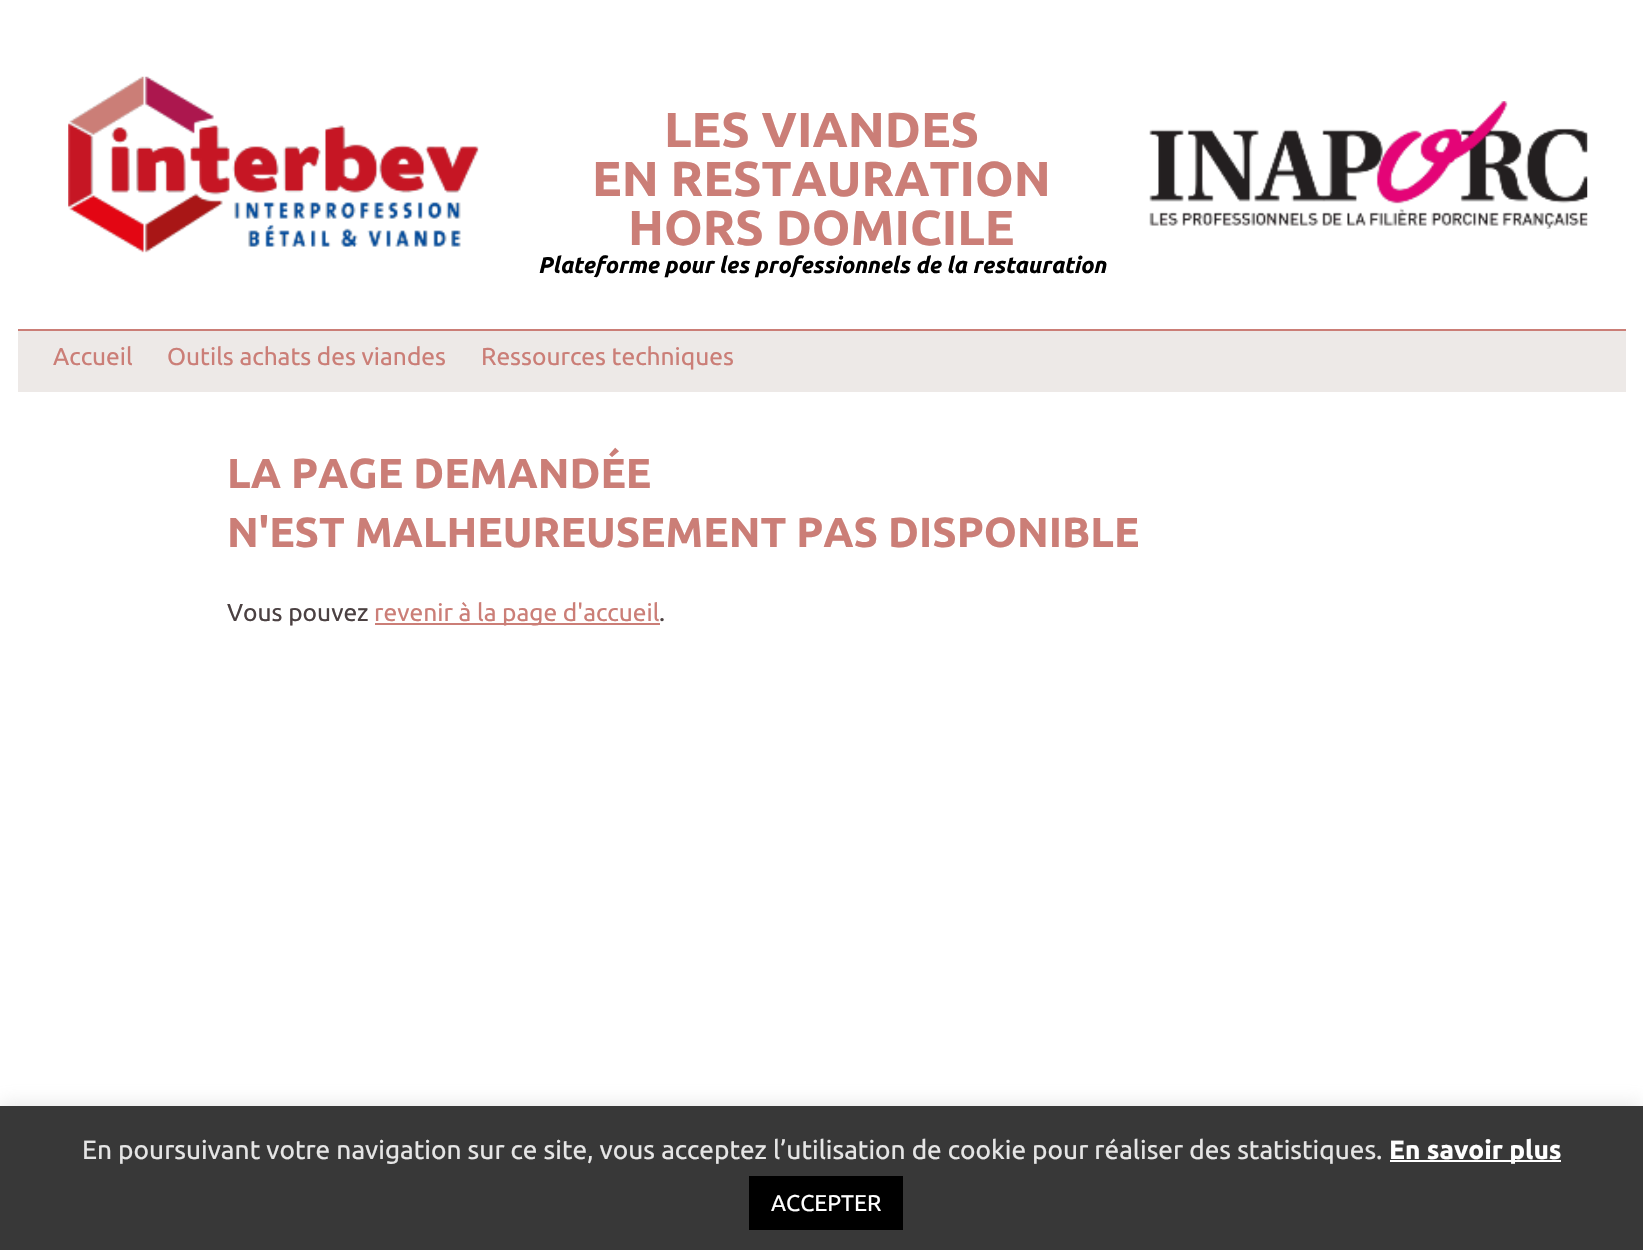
void draw(SkCanvas* canvas) {
	SkPaint paint;
	paint.setAntiAlias(true);
	canvas->clear(0xffffffff);
	paint.setColor(0xffcb7e77);
	canvas->drawRect(SkRect::MakeXYWH(18, 329, 1608, 2), paint);
	canvas->drawImageRect(SkImages::DeferredFromEncodedData(SkData::MakeFromFileName("img1.png")), SkRect::MakeXYWH(68, 76, 411, 177), SkSamplingOptions());
	SkFont f1(fontMgr->matchFamilyStyle("Ubuntu", SkFontStyle::Bold()), 49);
	f1.setSubpixel(true);
	canvas->drawString("LES VIANDES", 664, 147, f1, paint);
	canvas->drawString("EN RESTAURATION", 592, 196, f1, paint);
	canvas->drawString("HORS DOMICILE", 628, 245, f1, paint);
	SkFont f2(fontMgr->matchFamilyStyle("Ubuntu", SkFontStyle::BoldItalic()), 22.75);
	f2.setSubpixel(true);
	paint.setColor(0xff000000);
	canvas->drawString("Plateforme pour les professionnels de la restauration", 538, 273, f2, paint);
	canvas->drawImageRect(SkImages::DeferredFromEncodedData(SkData::MakeFromFileName("img2.png")), SkRect::MakeXYWH(1149, 101, 439, 128), SkSamplingOptions());
	paint.setColor(0xffede9e7);
	canvas->drawRect(SkRect::MakeXYWH(18, 331, 1608, 61), paint);
	SkFont f3(fontMgr->matchFamilyStyle("Ubuntu", SkFontStyle::Normal()), 24.5);
	f3.setSubpixel(true);
	paint.setColor(0xffcb7e77);
	canvas->drawString("Accueil", 53, 365, f3, paint);
	canvas->drawString("Outils achats des viandes", 167, 365, f3, paint);
	canvas->drawString("Ressources techniques", 481, 365, f3, paint);
	SkFont f4(fontMgr->matchFamilyStyle("Ubuntu", SkFontStyle::Bold()), 42);
	f4.setSubpixel(true);
	canvas->drawString("LA PAGE DEMANDÉE", 227, 488, f4, paint);
	canvas->drawString("N'EST MALHEUREUSEMENT PAS DISPONIBLE", 227, 547, f4, paint);
	paint.setColor(0xff4b4142);
	canvas->drawString("Vous pouvez", 227, 621, f3, paint);
	paint.setColor(0xffcb7e77);
	canvas->drawRect(SkRect::MakeXYWH(375, 623, 285, 2), paint);
	canvas->drawString("revenir à la page d'accueil", 374, 621, f3, paint);
	paint.setColor(0xff4b4142);
	canvas->drawString(".", 659, 621, f3, paint);
	paint.setColor(0x4dacabab);
	paint.setMaskFilter(SkMaskFilter::MakeBlur(kNormal_SkBlurStyle, 9));
	canvas->drawRect(SkRect::MakeXYWH(0, 1104, 1643, 146), paint);
	paint.setMaskFilter(nullptr);
	paint.setColor(0xff383838);
	canvas->drawRect(SkRect::MakeXYWH(0, 1106, 1643, 144), paint);
	SkFont f5(fontMgr->matchFamilyStyle("Ubuntu", SkFontStyle::Normal()), 26.25);
	f5.setSubpixel(true);
	paint.setColor(0xffe5e5e5);
	canvas->drawString("En poursuivant votre navigation sur ce site, vous acceptez l’utilisation de cookie pour réaliser des statistiques.", 82, 1159, f5, paint);
	paint.setColor(0xffffffff);
	canvas->drawRect(SkRect::MakeXYWH(1390, 1160, 171, 2), paint);
	SkFont f6(fontMgr->matchFamilyStyle("Ubuntu", SkFontStyle::Bold()), 26.25);
	f6.setSubpixel(true);
	canvas->drawString("En savoir plus", 1389, 1159, f6, paint);
	paint.setColor(0xff000000);
	canvas->drawRect(SkRect::MakeXYWH(749, 1176, 154, 54), paint);
	SkFont f7(fontMgr->matchFamilyStyle("Ubuntu", SkFontStyle::Normal()), 22.75);
	f7.setSubpixel(true);
	paint.setColor(0xffffffff);
	canvas->drawString("ACCEPTER", 771, 1211, f7, paint);
}
